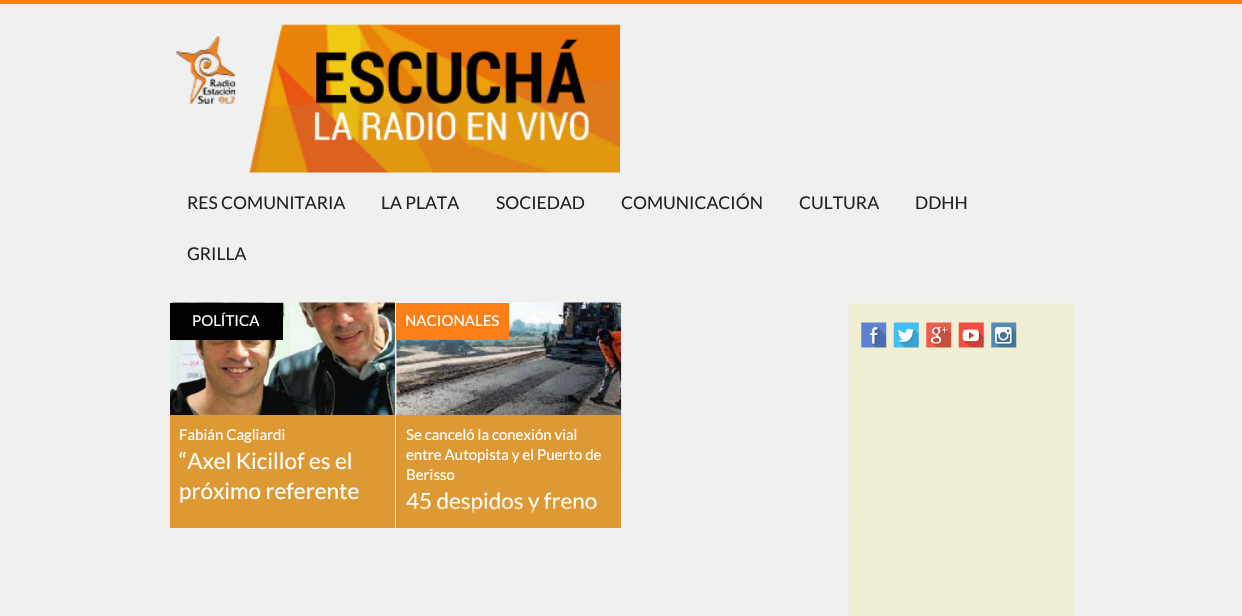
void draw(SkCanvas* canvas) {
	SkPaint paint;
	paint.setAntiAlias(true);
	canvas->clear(0xfff0f0f0);
	paint.setColor(0xffff7f17);
	canvas->drawRect(SkRect::MakeXYWH(0, 0, 1242, 4), paint);
	canvas->drawImageRect(SkImages::DeferredFromEncodedData(SkData::MakeFromFileName("img1.png")), SkRect::MakeXYWH(176, 36, 60, 68), SkSamplingOptions());
	canvas->drawImageRect(SkImages::DeferredFromEncodedData(SkData::MakeFromFileName("img2.png")), SkRect::MakeXYWH(248, 24, 372, 149), SkSamplingOptions());
	SkFont f1(fontMgr->matchFamilyStyle("Lato", SkFontStyle::Normal()), 17.5);
	f1.setSubpixel(true);
	paint.setColor(0xff222222);
	canvas->drawString("RES COMUNITARIA", 187, 209, f1, paint);
	canvas->drawString("LA PLATA", 381, 209, f1, paint);
	canvas->drawString("SOCIEDAD", 496, 209, f1, paint);
	canvas->drawString("COMUNICACIÓN", 621, 209, f1, paint);
	canvas->drawString("CULTURA", 799, 209, f1, paint);
	canvas->drawString("DDHH", 915, 209, f1, paint);
	canvas->drawString("GRILLA", 187, 260, f1, paint);
	canvas->drawImageRect(SkImages::DeferredFromEncodedData(SkData::MakeFromFileName("img3.png")), SkRect::MakeXYWH(170, 302, 225, 113), SkSamplingOptions());
	paint.setColor(0xff000000);
	canvas->drawRect(SkRect::MakeXYWH(170, 303, 113, 37), paint);
	SkFont f2(fontMgr->matchFamilyStyle("Lato", SkFontStyle::Normal()), 15);
	f2.setSubpixel(true);
	paint.setColor(0xffffffff);
	canvas->drawString("POLÍTICA", 192, 326, f2, paint);
	paint.setColor(0xffdd9933);
	canvas->drawRect(SkRect::MakeXYWH(170, 415, 225, 101), paint);
	paint.setColor(0xffffffff);
	canvas->drawString("Fabián Cagliardi", 179, 440, f2, paint);
	SkFont f3(fontMgr->matchFamilyStyle("Lato", SkFontStyle::Normal()), 22.5);
	f3.setSubpixel(true);
	canvas->drawString("“Axel Kicillof es el", 179, 469, f3, paint);
	canvas->drawString("próximo referente", 179, 499, f3, paint);
	{
		const SkColor colors[] = {0x00dd9933, 0x03dd9933, 0xffdd9933};
		const float stops[] = {0, 0.01, 0.5};
		const SkPoint ends[] = {{283, 505}, {283, 528}};
		paint.setShader(SkGradientShader::MakeLinear(ends, colors, stops, 3, SkTileMode::kClamp));
		paint.setAlpha(255);
	}
	canvas->drawRect(SkRect::MakeXYWH(170, 516, 225, 12), paint);
	paint.setShader(nullptr);
	paint.setColor(0xffffffff);
	canvas->drawRect(SkRect::MakeXYWH(396, 340, 1, 75), paint);
	canvas->drawImageRect(SkImages::DeferredFromEncodedData(SkData::MakeFromFileName("img4.png")), SkRect::MakeXYWH(396, 302, 226, 169), SkSamplingOptions());
	paint.setColor(0xffff7f17);
	canvas->drawRect(SkRect::MakeXYWH(396, 303, 113, 37), paint);
	paint.setColor(0xffffffff);
	canvas->drawString("NACIONALES", 405, 326, f2, paint);
	paint.setColor(0xffdd9933);
	canvas->drawRect(SkRect::MakeXYWH(396, 415, 225, 101), paint);
	paint.setColor(0xffffffff);
	canvas->drawString("Se canceló la conexión vial", 406, 440, f2, paint);
	canvas->drawString("entre Autopista y el Puerto de", 406, 460, f2, paint);
	canvas->drawString("Berisso", 406, 480, f2, paint);
	canvas->drawString("45 despidos y freno", 406, 509, f3, paint);
	{
		const SkColor colors[] = {0x00dd9933, 0x03dd9933, 0xffdd9933};
		const float stops[] = {0, 0.01, 0.5};
		const SkPoint ends[] = {{509, 505}, {509, 528}};
		paint.setShader(SkGradientShader::MakeLinear(ends, colors, stops, 3, SkTileMode::kClamp));
		paint.setAlpha(255);
	}
	canvas->drawRect(SkRect::MakeXYWH(396, 505, 225, 23), paint);
	paint.setShader(nullptr);
	paint.setColor(0xfff1efd3);
	canvas->drawRect(SkRect::MakeXYWH(849, 303, 225, 72), paint);
	canvas->drawImageRect(SkImages::DeferredFromEncodedData(SkData::MakeFromFileName("img5.png")), SkRect::MakeXYWH(861, 322, 26, 26), SkSamplingOptions());
	canvas->drawImageRect(SkImages::DeferredFromEncodedData(SkData::MakeFromFileName("img6.png")), SkRect::MakeXYWH(893, 322, 26, 26), SkSamplingOptions());
	canvas->drawImageRect(SkImages::DeferredFromEncodedData(SkData::MakeFromFileName("img7.png")), SkRect::MakeXYWH(926, 322, 26, 26), SkSamplingOptions());
	canvas->drawImageRect(SkImages::DeferredFromEncodedData(SkData::MakeFromFileName("img8.png")), SkRect::MakeXYWH(958, 322, 26, 26), SkSamplingOptions());
	canvas->drawImageRect(SkImages::DeferredFromEncodedData(SkData::MakeFromFileName("img9.png")), SkRect::MakeXYWH(991, 322, 26, 26), SkSamplingOptions());
	canvas->drawRect(SkRect::MakeXYWH(849, 376, 225, 143), paint);
	canvas->drawRect(SkRect::MakeXYWH(849, 520, 225, 96), paint);
}
